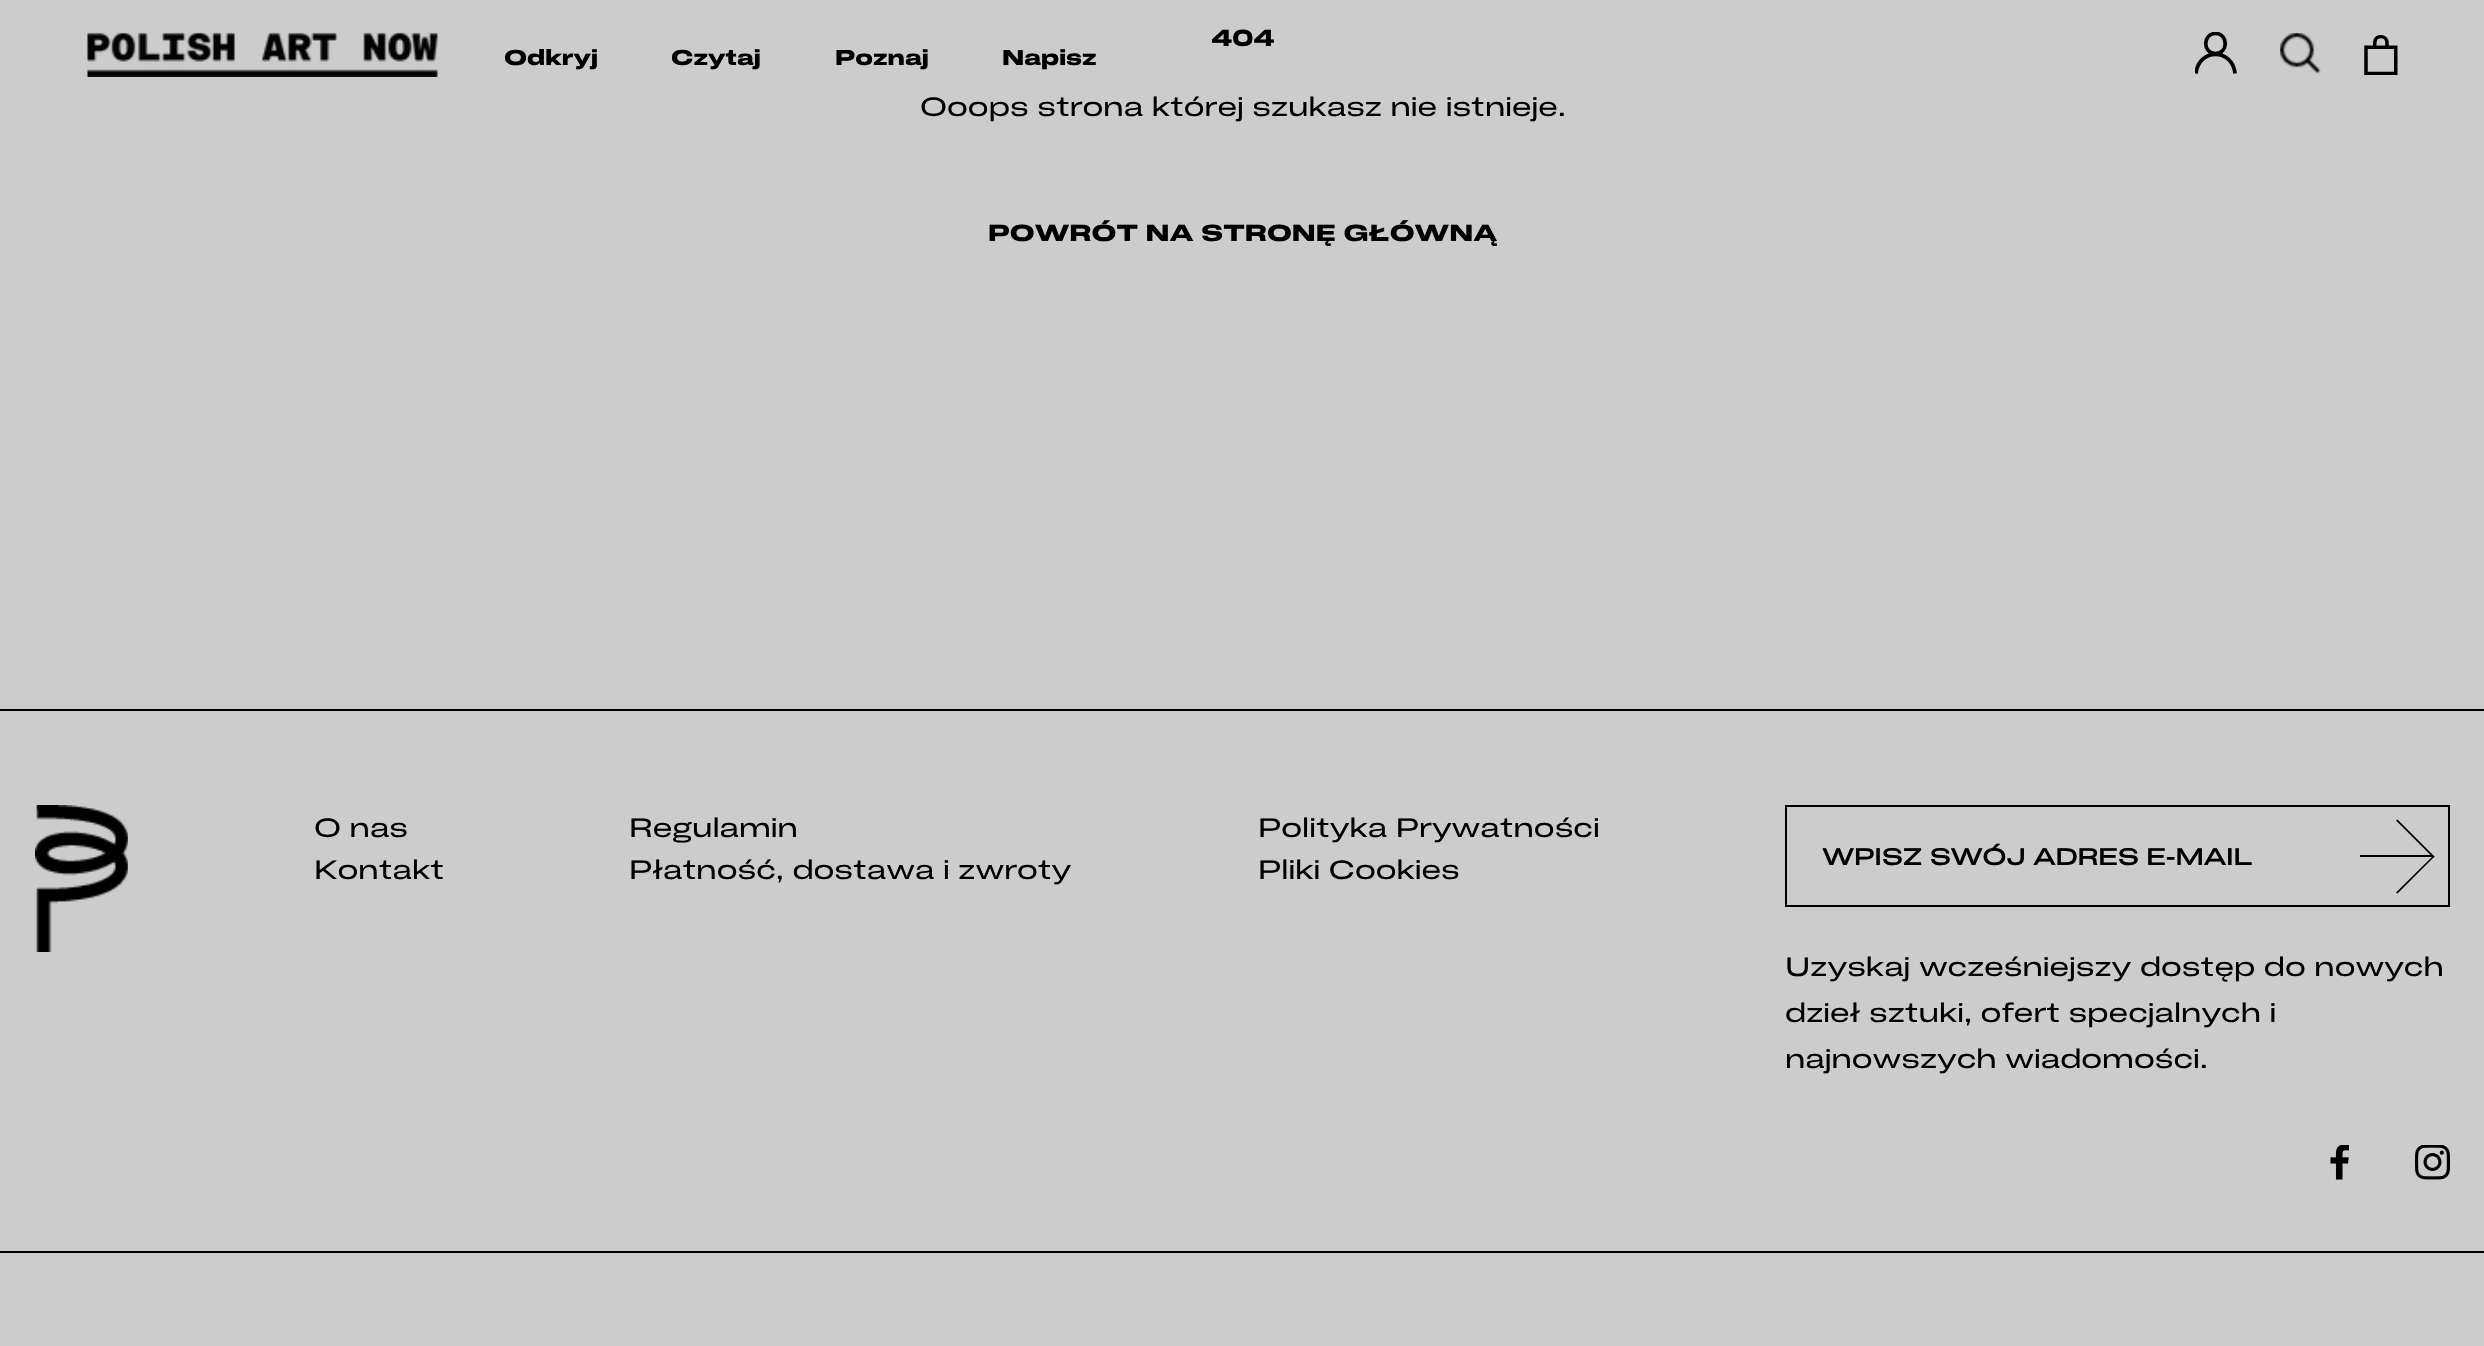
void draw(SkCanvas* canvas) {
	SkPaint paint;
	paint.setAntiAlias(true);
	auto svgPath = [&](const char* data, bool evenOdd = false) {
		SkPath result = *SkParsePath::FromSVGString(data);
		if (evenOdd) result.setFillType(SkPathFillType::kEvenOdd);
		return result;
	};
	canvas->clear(0xffcccccc);
	canvas->drawImageRect(SkImages::DeferredFromEncodedData(SkData::MakeFromFileName("img1.png")), SkRect::MakeXYWH(87, 32, 351, 45), SkSamplingOptions());
	SkFont f1(fontMgr->matchFamilyStyle("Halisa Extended", SkFontStyle(900, SkFontStyle::kNormal_Width, SkFontStyle::kUpright_Slant)), 22.75);
	f1.setSubpixel(true);
	paint.setColor(0xff000000);
	canvas->drawString("Odkryj", 504, 65, f1, paint);
	canvas->drawString("Czytaj", 671, 65, f1, paint);
	canvas->drawString("Poznaj", 835, 65, f1, paint);
	canvas->drawString("Napisz", 1002, 65, f1, paint);
	canvas->save();
	canvas->clipRect(SkRect::MakeXYWH(2195, 32, 42, 42));
	paint.setStroke(true);
	paint.setStrokeWidth(3.7);
	canvas->drawPath(svgPath("M2196 73.5C2198.5 48 2232.5 48 2235 73.5M2215.5 53.5C2202.5 53.5 2202.5 33.5 2215.5 33.5C2228.5 33.5 2228.5 53.5 2215.5 53.5Z"), paint);
	canvas->restore();
	canvas->drawImageRect(SkImages::DeferredFromEncodedData(SkData::MakeFromFileName("img2.png")), SkRect::MakeXYWH(2280, 33, 41, 41), SkSamplingOptions());
	canvas->drawImageRect(SkImages::DeferredFromEncodedData(SkData::MakeFromFileName("img3.png")), SkRect::MakeXYWH(2364, 35, 34, 40), SkSamplingOptions());
	SkFont f2(fontMgr->matchFamilyStyle("Halisa Extended", SkFontStyle(900, SkFontStyle::kNormal_Width, SkFontStyle::kUpright_Slant)), 24.5);
	f2.setSubpixel(true);
	paint.setStroke(false);
	canvas->drawString("404", 1211, 46, f2, paint);
	SkFont f3(fontMgr->matchFamilyStyle("Halisa Extended", SkFontStyle::Normal()), 28);
	f3.setSubpixel(true);
	canvas->drawString("Ooops strona której szukasz nie istnieje.", 920, 116, f3, paint);
	canvas->drawString("POWRÓT NA STRONĘ GŁÓWNĄ", 988, 241, f2, paint);
	canvas->drawRect(SkRect::MakeXYWH(0, 709, 2484, 2), paint);
	canvas->drawImageRect(SkImages::DeferredFromEncodedData(SkData::MakeFromFileName("img4.png")), SkRect::MakeXYWH(35, 805, 93, 147), SkSamplingOptions());
	canvas->drawString("O nas", 314, 837, f3, paint);
	canvas->drawString("Kontakt", 314, 879, f3, paint);
	canvas->drawString("Regulamin", 629, 837, f3, paint);
	canvas->drawString("Płatność, dostawa i zwroty", 629, 879, f3, paint);
	canvas->drawString("Polityka Prywatności", 1258, 837, f3, paint);
	canvas->drawString("Pliki Cookies", 1258, 879, f3, paint);
	paint.setStroke(true);
	paint.setStrokeWidth(2);
	canvas->drawRect(SkRect::MakeXYWH(1786, 806, 663, 100), paint);
	SkFont f4(fontMgr->matchFamilyStyle("Halisa Extended", SkFontStyle::Bold()), 24.5);
	f4.setSubpixel(true);
	paint.setStroke(false);
	canvas->drawString("WPISZ SWÓJ ADRES E-MAIL", 1822, 865, f4, paint);
	canvas->drawPath(svgPath("M2434.5 856.5L2397.5 893.5L2396 892.5L2433.5 855.5Z"), paint);
	canvas->drawPath(svgPath("M2434.5 856.5L2433.5 858L2396 820.5L2397.5 819.5Z"), paint);
	canvas->drawRect(SkRect::MakeXYWH(2360, 855, 72, 2), paint);
	canvas->drawString("Uzyskaj wcześniejszy dostęp do nowych", 1785, 976, f3, paint);
	canvas->drawString("dzieł sztuki, ofert specjalnych i", 1785, 1022, f3, paint);
	canvas->drawString("najnowszych wiadomości.", 1785, 1068, f3, paint);
	canvas->drawImageRect(SkImages::DeferredFromEncodedData(SkData::MakeFromFileName("img5.png")), SkRect::MakeXYWH(2330, 1145, 19, 35), SkSamplingOptions());
	canvas->drawImageRect(SkImages::DeferredFromEncodedData(SkData::MakeFromFileName("img6.png")), SkRect::MakeXYWH(2415, 1145, 35, 35), SkSamplingOptions());
	canvas->drawRect(SkRect::MakeXYWH(0, 1251, 2484, 2), paint);
}
